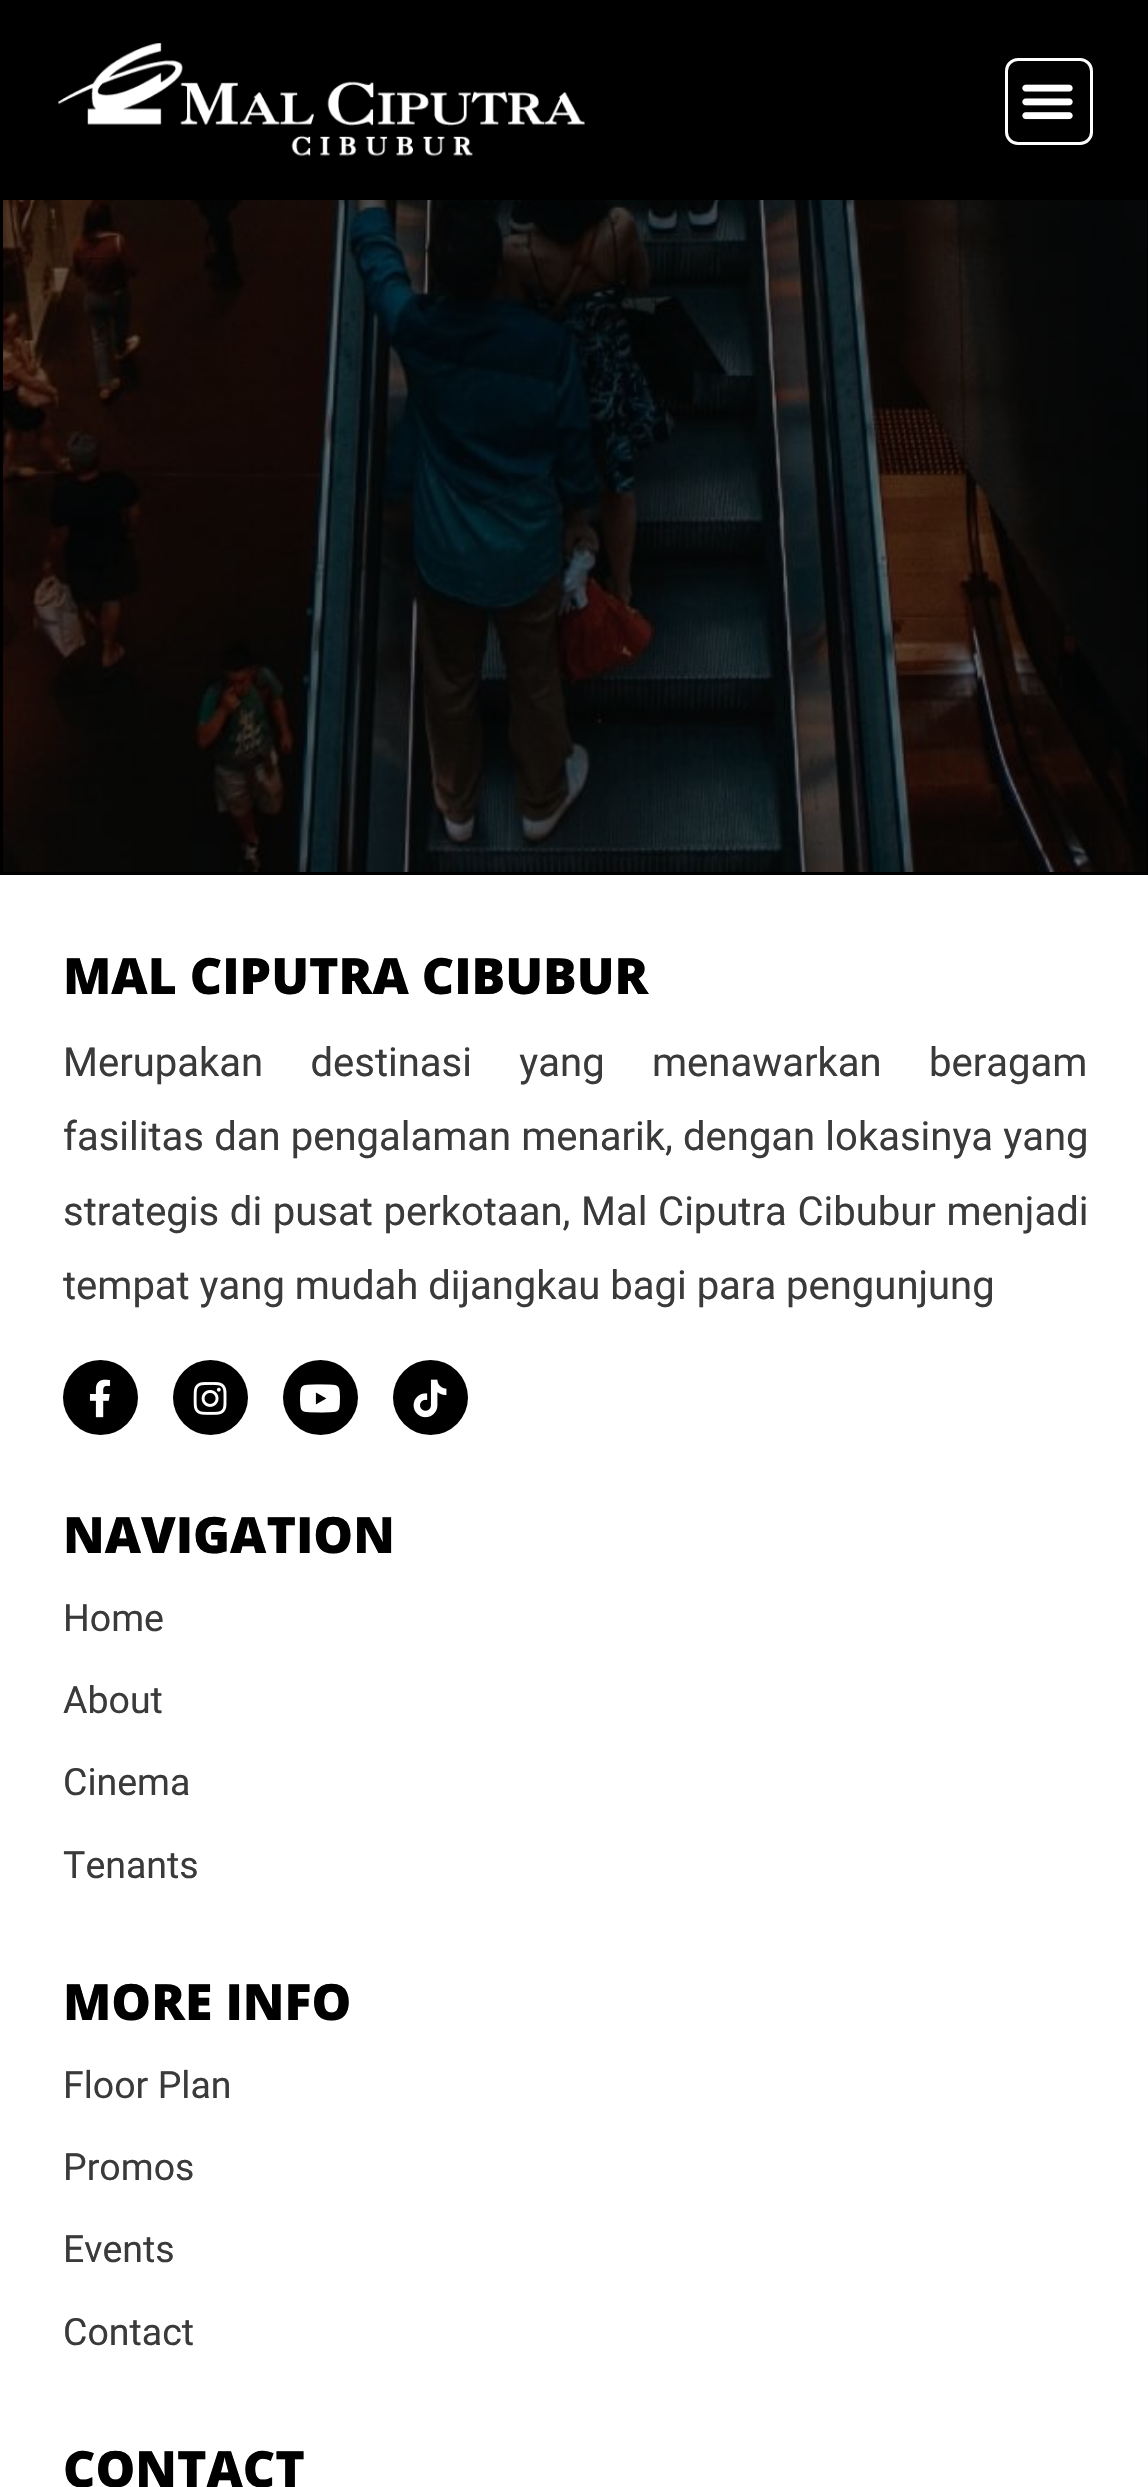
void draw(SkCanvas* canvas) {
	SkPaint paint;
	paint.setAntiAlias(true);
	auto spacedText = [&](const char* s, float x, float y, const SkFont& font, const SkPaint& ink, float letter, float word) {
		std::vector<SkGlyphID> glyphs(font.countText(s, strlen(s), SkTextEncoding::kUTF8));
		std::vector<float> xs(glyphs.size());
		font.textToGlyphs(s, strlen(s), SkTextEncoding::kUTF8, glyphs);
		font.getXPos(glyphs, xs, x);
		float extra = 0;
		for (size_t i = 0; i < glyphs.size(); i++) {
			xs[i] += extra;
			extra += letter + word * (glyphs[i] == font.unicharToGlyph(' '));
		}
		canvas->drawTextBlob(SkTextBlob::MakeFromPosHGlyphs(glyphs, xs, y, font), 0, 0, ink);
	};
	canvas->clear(0xffffffff);
	canvas->drawImageRect(SkImages::DeferredFromEncodedData(SkData::MakeFromFileName("img1.png")), SkRect::MakeXYWH(3, 200, 1144, 672), SkSamplingOptions());
	paint.setStroke(true);
	paint.setStrokeWidth(3);
	paint.setColor(0xff000000);
	canvas->drawRect(SkRect::MakeXYWH(1.5, -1.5, 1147, 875), paint);
	paint.setStroke(false);
	paint.setColor(0x99000000);
	canvas->drawRect(SkRect::MakeXYWH(3, 200, 1144, 672), paint);
	paint.setColor(0xff000000);
	canvas->drawRect(SkRect::MakeXYWH(3, 0, 1144, 200), paint);
	canvas->drawImageRect(SkImages::DeferredFromEncodedData(SkData::MakeFromFileName("img2.png")), SkRect::MakeXYWH(58, 43, 527, 114), SkSamplingOptions());
	paint.setStroke(true);
	paint.setColor(0xffffffff);
	canvas->drawRoundRect(SkRect::MakeXYWH(1006.5, 59.5, 85, 84), 11.5, 11.5, paint);
	canvas->drawImageRect(SkImages::DeferredFromEncodedData(SkData::MakeFromFileName("img3.png")), SkRect::MakeXYWH(1022, 84, 51, 36), SkSamplingOptions());
	SkFont f1(fontMgr->matchFamilyStyle("Open Sans", SkFontStyle(800, SkFontStyle::kNormal_Width, SkFontStyle::kUpright_Slant)), 50);
	f1.setSubpixel(true);
	paint.setStroke(false);
	paint.setColor(0xff000000);
	canvas->drawString("MAL CIPUTRA CIBUBUR", 63, 994, f1, paint);
	SkFont f2(fontMgr->matchFamilyStyle("Roboto", SkFontStyle::Normal()), 40);
	f2.setSubpixel(true);
	paint.setColor(0xff3a3a3a);
	spacedText("Merupakan destinasi yang menawarkan beragam", 63, 1076, f2, paint, 0, 37.5);
	spacedText("fasilitas dan pengalaman menarik, dengan lokasinya yang", 63, 1150, f2, paint, 0, 0.25);
	spacedText("strategis di pusat perkotaan, Mal Ciputra Cibubur menjadi", 63, 1225, f2, paint, 0, 0.75);
	canvas->drawString("tempat yang mudah dijangkau bagi para pengunjung", 63, 1299, f2, paint);
	paint.setColor(0xff000000);
	canvas->drawCircle(100.5, 1397.5, 37.5, paint);
	canvas->drawImageRect(SkImages::DeferredFromEncodedData(SkData::MakeFromFileName("img4.png")), SkRect::MakeXYWH(89, 1379, 22, 39), SkSamplingOptions());
	canvas->drawCircle(210.5, 1397.5, 37.5, paint);
	canvas->drawImageRect(SkImages::DeferredFromEncodedData(SkData::MakeFromFileName("img5.png")), SkRect::MakeXYWH(193, 1382, 34, 33), SkSamplingOptions());
	canvas->drawCircle(320.5, 1397.5, 37.5, paint);
	canvas->drawImageRect(SkImages::DeferredFromEncodedData(SkData::MakeFromFileName("img6.png")), SkRect::MakeXYWH(300, 1384, 40, 29), SkSamplingOptions());
	canvas->drawCircle(430.5, 1397.5, 37.5, paint);
	canvas->drawImageRect(SkImages::DeferredFromEncodedData(SkData::MakeFromFileName("img7.png")), SkRect::MakeXYWH(413, 1379, 34, 39), SkSamplingOptions());
	canvas->drawString("NAVIGATION", 63, 1553, f1, paint);
	SkFont f3(fontMgr->matchFamilyStyle("Roboto", SkFontStyle::Normal()), 37.5);
	f3.setSubpixel(true);
	paint.setColor(0xff3a3a3a);
	canvas->drawString("Home", 63, 1631, f3, paint);
	canvas->drawString("About", 63, 1713, f3, paint);
	canvas->drawString("Cinema", 63, 1795, f3, paint);
	canvas->drawString("Tenants", 63, 1878, f3, paint);
	paint.setColor(0xff000000);
	canvas->drawString("MORE INFO", 63, 2020, f1, paint);
	paint.setColor(0xff3a3a3a);
	canvas->drawString("Floor Plan", 63, 2098, f3, paint);
	canvas->drawString("Promos", 63, 2180, f3, paint);
	canvas->drawString("Events", 63, 2262, f3, paint);
	canvas->drawString("Contact", 63, 2345, f3, paint);
	paint.setColor(0xff000000);
	canvas->drawString("CONTACT", 63, 2487, f1, paint);
}
